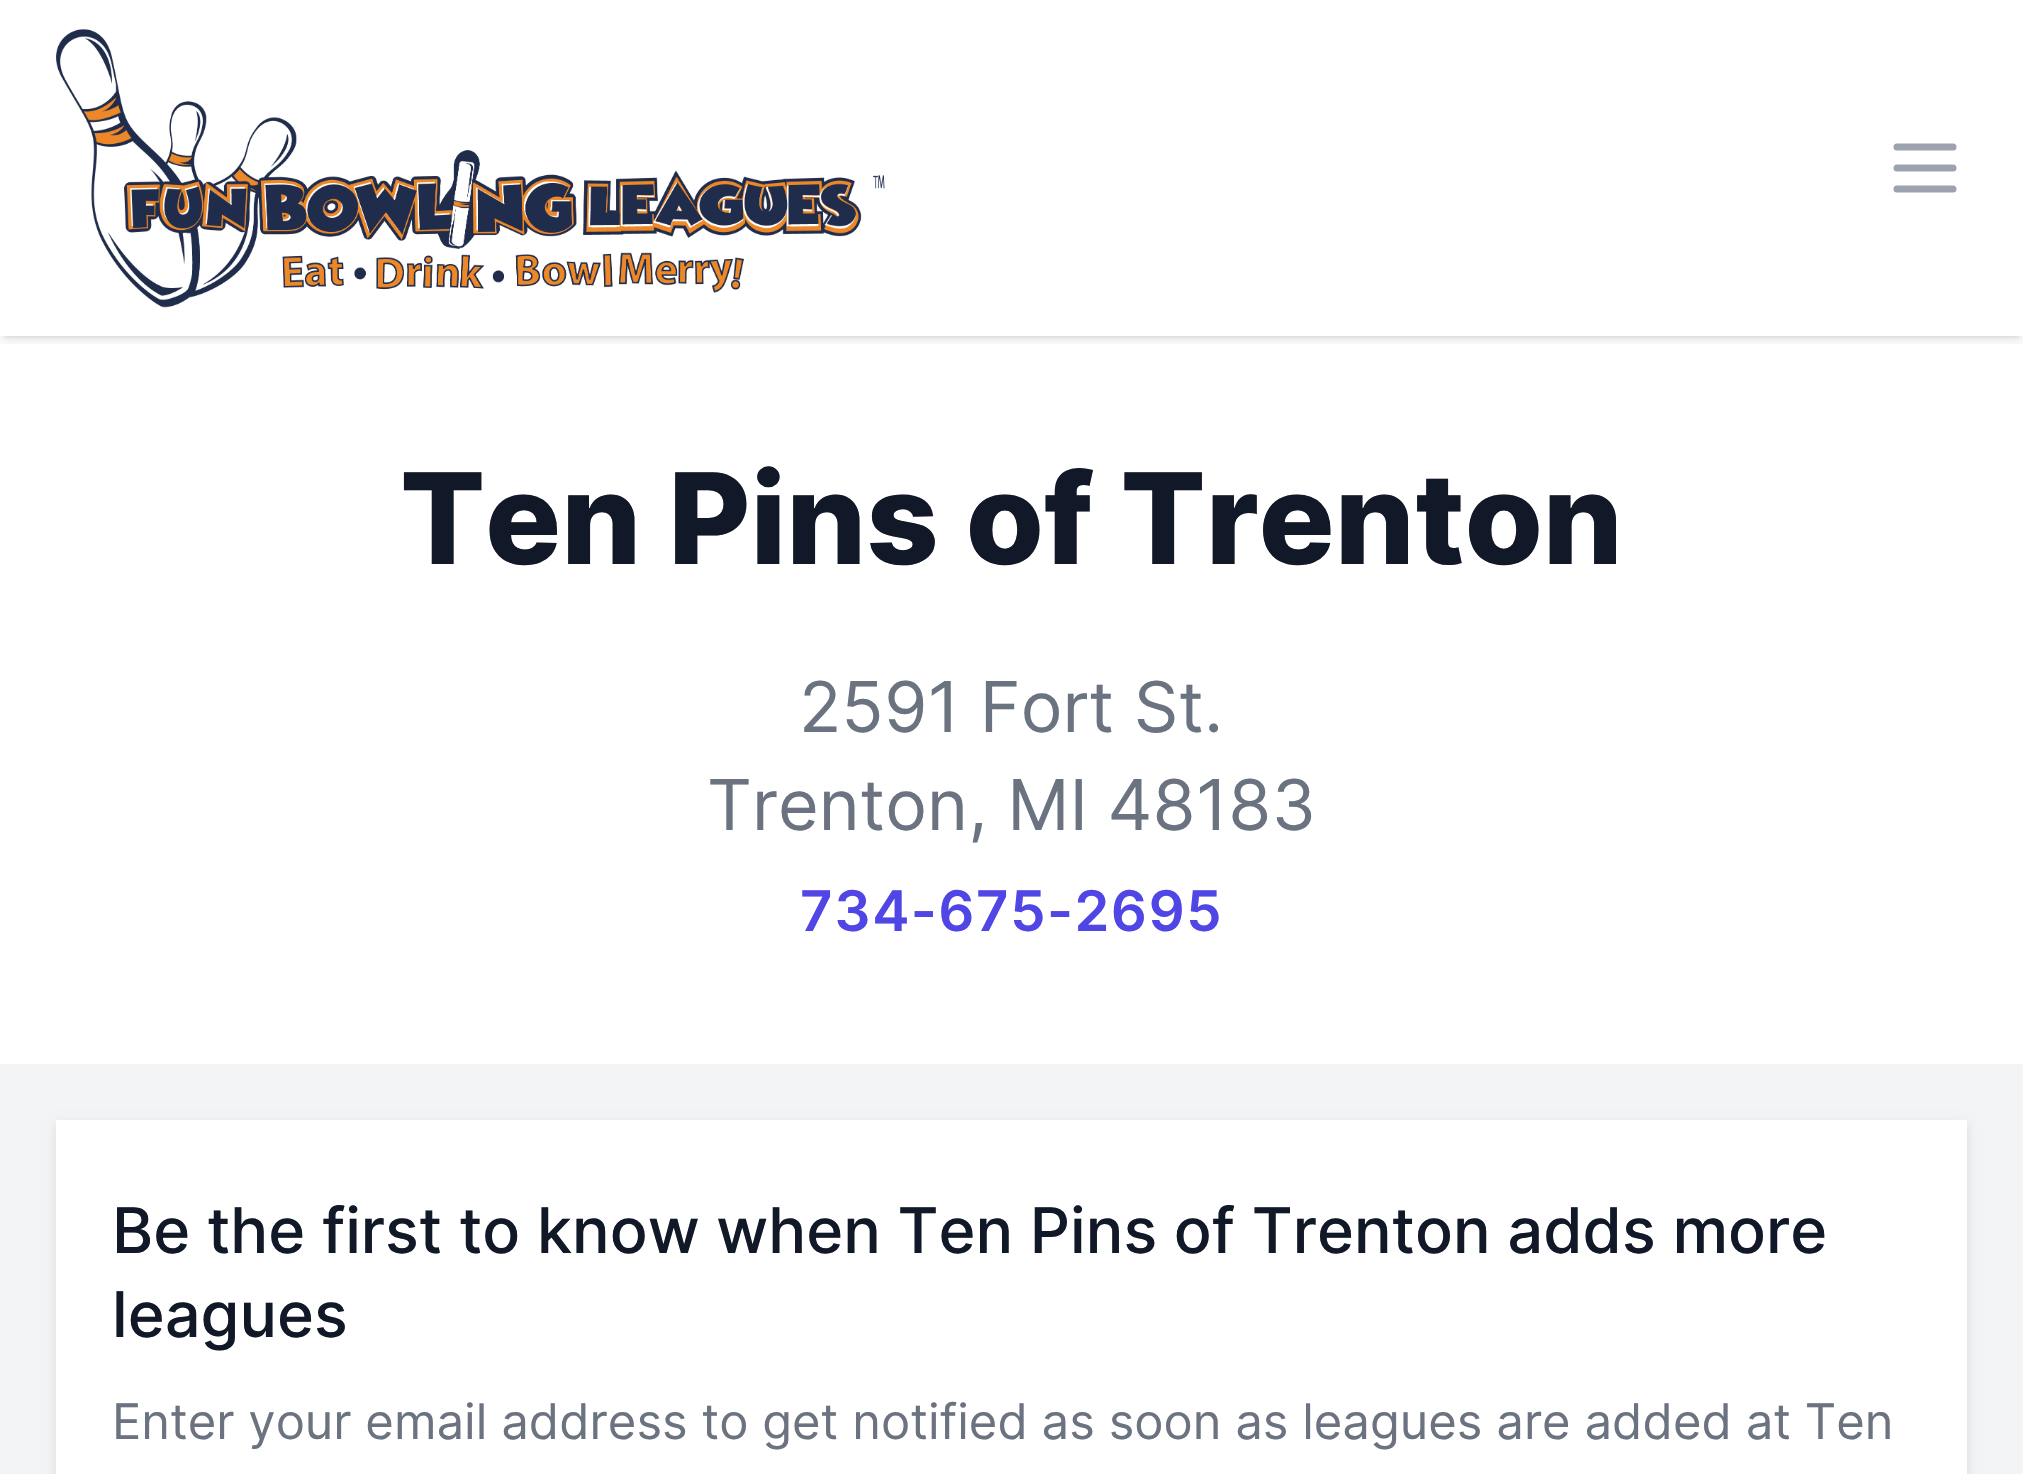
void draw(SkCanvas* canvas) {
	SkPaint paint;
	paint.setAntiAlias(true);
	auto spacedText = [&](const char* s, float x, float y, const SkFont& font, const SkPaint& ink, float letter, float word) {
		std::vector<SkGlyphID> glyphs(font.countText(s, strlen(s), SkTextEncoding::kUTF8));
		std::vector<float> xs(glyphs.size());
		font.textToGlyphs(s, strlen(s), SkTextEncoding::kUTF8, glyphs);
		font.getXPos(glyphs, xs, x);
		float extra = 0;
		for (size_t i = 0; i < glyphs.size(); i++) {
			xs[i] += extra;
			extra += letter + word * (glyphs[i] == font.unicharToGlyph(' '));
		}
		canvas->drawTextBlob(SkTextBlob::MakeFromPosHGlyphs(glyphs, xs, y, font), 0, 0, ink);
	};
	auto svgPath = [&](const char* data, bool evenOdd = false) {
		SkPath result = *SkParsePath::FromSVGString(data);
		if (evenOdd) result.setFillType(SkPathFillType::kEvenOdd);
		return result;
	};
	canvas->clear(0xfff3f4f6);
	paint.setColor(0xffffffff);
	canvas->drawRect(SkRect::MakeXYWH(0, 0, 2023, 1064), paint);
	canvas->drawImageRect(SkImages::DeferredFromEncodedData(SkData::MakeFromFileName("img1.png")), SkRect::MakeXYWH(56, 28, 829, 280), SkSamplingOptions());
	paint.setStroke(true);
	paint.setStrokeWidth(7);
	paint.setStrokeCap(SkPaint::kRound_Cap);
	paint.setStrokeJoin(SkPaint::kRound_Join);
	paint.setColor(0xff9ca3af);
	canvas->drawPath(svgPath("M1897 147H1953M1897 168H1953M1897 189H1953"), paint);
	canvas->save();
	canvas->clipRect(SkRect::MakeXYWH(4, 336, 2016, 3));
	paint.setStroke(false);
	paint.setColor(0x1a000000);
	paint.setMaskFilter(SkMaskFilter::MakeBlur(kNormal_SkBlurStyle, 3.5));
	canvas->drawRect(SkRect::MakeXYWH(4, 7, 2016, 329), paint);
	paint.setMaskFilter(nullptr);
	canvas->restore();
	canvas->save();
	canvas->clipRect(SkRect::MakeXYWH(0, 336, 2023, 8));
	paint.setMaskFilter(SkMaskFilter::MakeBlur(kNormal_SkBlurStyle, 5));
	canvas->drawRect(SkRect::MakeXYWH(0, 4, 2023, 336), paint);
	paint.setMaskFilter(nullptr);
	canvas->restore();
	SkFont f1(fontMgr->matchFamilyStyle("Inter", SkFontStyle(800, SkFontStyle::kNormal_Width, SkFontStyle::kItalic_Slant)), 126);
	f1.setSubpixel(true);
	paint.setColor(0xff111827);
	canvas->drawString("Ten Pins of Trenton", 400, 564, f1, paint);
	SkFont f2(fontMgr->matchFamilyStyle("Inter", SkFontStyle::Italic()), 70);
	f2.setSubpixel(true);
	paint.setColor(0xff6b7280);
	canvas->drawString("2591 Fort St.", 799, 732, f2, paint);
	canvas->drawString("Trenton, MI 48183", 707, 830, f2, paint);
	SkFont f3(fontMgr->matchFamilyStyle("Inter", SkFontStyle(600, SkFontStyle::kNormal_Width, SkFontStyle::kItalic_Slant)), 56);
	f3.setSubpixel(true);
	paint.setColor(0xff4f46e5);
	spacedText("734-675-2695", 800, 931, f3, paint, 1.4, 0);
	paint.setColor(0x1a000000);
	paint.setMaskFilter(SkMaskFilter::MakeBlur(kNormal_SkBlurStyle, 5));
	canvas->drawRect(SkRect::MakeXYWH(56, 1124, 1911, 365), paint);
	paint.setMaskFilter(nullptr);
	paint.setColor(0xffffffff);
	canvas->drawRect(SkRect::MakeXYWH(56, 1120, 1911, 354), paint);
	SkFont f4(fontMgr->matchFamilyStyle("Inter", SkFontStyle(500, SkFontStyle::kNormal_Width, SkFontStyle::kItalic_Slant)), 63);
	f4.setSubpixel(true);
	paint.setColor(0xff111827);
	canvas->drawString("Be the first to know when Ten Pins of Trenton adds more", 112, 1253, f4, paint);
	canvas->drawString("leagues", 112, 1337, f4, paint);
	SkFont f5(fontMgr->matchFamilyStyle("Inter", SkFontStyle::Italic()), 49);
	f5.setSubpixel(true);
	paint.setColor(0xff6b7280);
	canvas->drawString("Enter your email address to get notified as soon as leagues are added at Ten", 112, 1439, f5, paint);
}
